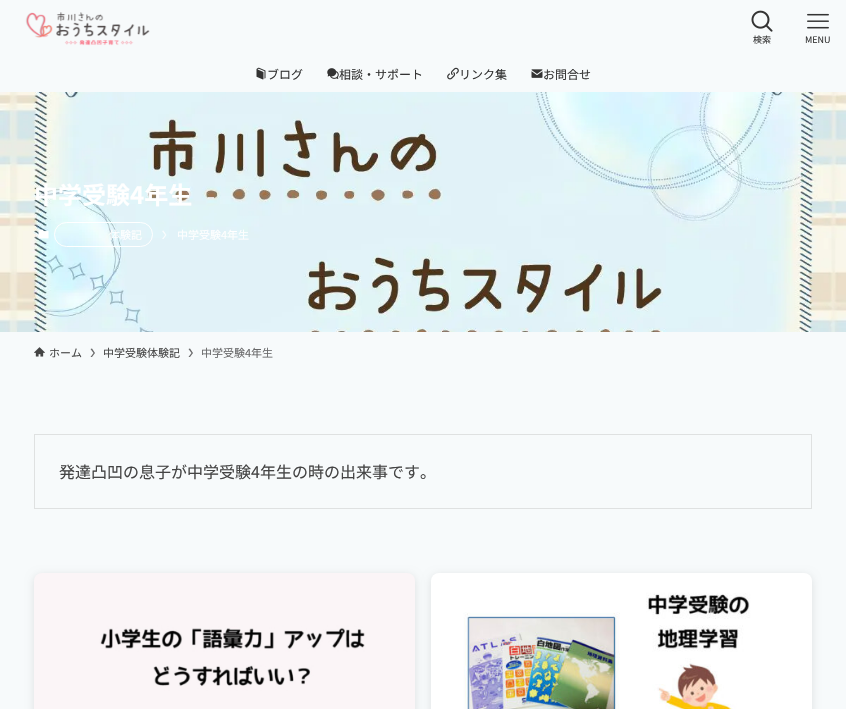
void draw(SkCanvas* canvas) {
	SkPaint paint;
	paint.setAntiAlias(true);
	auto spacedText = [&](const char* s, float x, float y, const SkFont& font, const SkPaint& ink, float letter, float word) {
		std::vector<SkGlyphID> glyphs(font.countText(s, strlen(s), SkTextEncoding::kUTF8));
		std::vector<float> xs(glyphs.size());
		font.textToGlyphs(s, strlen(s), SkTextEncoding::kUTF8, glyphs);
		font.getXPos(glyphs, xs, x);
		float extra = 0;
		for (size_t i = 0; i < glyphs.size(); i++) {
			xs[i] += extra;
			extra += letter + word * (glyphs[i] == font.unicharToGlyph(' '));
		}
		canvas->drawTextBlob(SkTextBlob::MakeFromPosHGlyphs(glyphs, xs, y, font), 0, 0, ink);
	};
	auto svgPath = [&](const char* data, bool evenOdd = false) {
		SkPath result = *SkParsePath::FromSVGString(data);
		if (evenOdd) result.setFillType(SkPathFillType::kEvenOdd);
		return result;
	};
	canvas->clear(0xfff7fafb);
	canvas->drawImageRect(SkImages::DeferredFromEncodedData(SkData::MakeFromFileName("img1.png")), SkRect::MakeXYWH(25, 12, 125, 34), SkSamplingOptions());
	canvas->drawImageRect(SkImages::DeferredFromEncodedData(SkData::MakeFromFileName("img2.png")), SkRect::MakeXYWH(751, 10, 22, 22), SkSamplingOptions());
	SkFont f1(fontMgr->matchFamilyStyle("Noto Sans JP", SkFontStyle::Normal()), 9);
	f1.setSubpixel(true);
	paint.setColor(0xff333333);
	canvas->drawString("検索", 753, 43, f1, paint);
	canvas->drawImageRect(SkImages::DeferredFromEncodedData(SkData::MakeFromFileName("img3.png")), SkRect::MakeXYWH(807, 13, 22, 16), SkSamplingOptions());
	canvas->drawString("MENU", 805, 43, f1, paint);
	canvas->drawImageRect(SkImages::DeferredFromEncodedData(SkData::MakeFromFileName("img4.png")), SkRect::MakeXYWH(256, 67, 10, 13), SkSamplingOptions());
	SkFont f2(fontMgr->matchFamilyStyle("Noto Sans JP", SkFontStyle::Normal()), 12);
	f2.setSubpixel(true);
	canvas->drawString("ブログ", 267, 79, f2, paint);
	canvas->drawImageRect(SkImages::DeferredFromEncodedData(SkData::MakeFromFileName("img5.png")), SkRect::MakeXYWH(327, 68, 12, 11), SkSamplingOptions());
	canvas->drawString("相談・サポート", 339, 79, f2, paint);
	canvas->drawImageRect(SkImages::DeferredFromEncodedData(SkData::MakeFromFileName("img6.png")), SkRect::MakeXYWH(447, 67, 12, 13), SkSamplingOptions());
	canvas->drawString("リンク集", 459, 79, f2, paint);
	canvas->drawImageRect(SkImages::DeferredFromEncodedData(SkData::MakeFromFileName("img7.png")), SkRect::MakeXYWH(531, 69, 12, 9), SkSamplingOptions());
	canvas->drawString("お問合せ", 543, 79, f2, paint);
	canvas->drawImageRect(SkImages::DeferredFromEncodedData(SkData::MakeFromFileName("img8.png")), SkRect::MakeXYWH(0, 92, 846, 240), SkSamplingOptions());
	SkFont f3(fontMgr->matchFamilyStyle("Noto Sans JP", SkFontStyle::Bold()), 24);
	f3.setSubpixel(true);
	paint.setColor(0xffffffff);
	canvas->drawString("中学受験4年生", 34, 204, f3, paint);
	SkFont f4(fontMgr->matchFamilyStyle("Noto Sans JP", SkFontStyle::BoldItalic()), 14);
	f4.setSubpixel(true);
	paint.setColor(0xfff6f7f7);
	spacedText("–", 206, 202, f4, paint, 1, 0);
	canvas->drawImageRect(SkImages::DeferredFromEncodedData(SkData::MakeFromFileName("img9.png")), SkRect::MakeXYWH(38, 229, 11, 10), SkSamplingOptions());
	paint.setStroke(true);
	paint.setStrokeWidth(1);
	paint.setColor(0xffffffff);
	canvas->drawRoundRect(SkRect::MakeXYWH(54.5, 222.5, 98, 24), 12, 12, paint);
	SkFont f5(fontMgr->matchFamilyStyle("Noto Sans JP", SkFontStyle::Normal()), 11);
	f5.setSubpixel(true);
	paint.setStroke(false);
	canvas->drawString("体験記", 109, 239, f5, paint);
	paint.setColor(0xfff9fdfe);
	canvas->drawPath(svgPath("M163.5 230.5L162 231L165 235L162 239H163.5L166.5 235Z"), paint);
	paint.setColor(0xffffffff);
	canvas->drawString("中学受験4年生", 177, 239, f5, paint);
	canvas->drawImageRect(SkImages::DeferredFromEncodedData(SkData::MakeFromFileName("img10.png")), SkRect::MakeXYWH(34, 347, 11, 10), SkSamplingOptions());
	paint.setColor(0xff444444);
	canvas->drawString("ホーム", 49, 357, f5, paint);
	paint.setColor(0xff686869);
	canvas->drawPath(svgPath("M92 348.5L90.5 349L93.5 353L90.5 357H92L95 353Z"), paint);
	paint.setColor(0xff444444);
	canvas->drawString("中学受験体験記", 103, 357, f5, paint);
	paint.setColor(0xff686869);
	canvas->drawPath(svgPath("M190 348.5L188.5 349L191.5 353L188.5 357H190L193 353Z"), paint);
	canvas->drawString("中学受験4年生", 201, 357, f5, paint);
	paint.setStroke(true);
	paint.setColor(0xffdfe1e1);
	canvas->drawRect(SkRect::MakeXYWH(34.5, 434.5, 777, 74), paint);
	SkFont f6(fontMgr->matchFamilyStyle("Noto Sans JP", SkFontStyle::Normal()), 16);
	f6.setSubpixel(true);
	paint.setStroke(false);
	paint.setColor(0xff444444);
	canvas->drawString("発達凸凹の息子が中学受験4年生の時の出来事です。", 59, 478, f6, paint);
	paint.setColor(0x1a000000);
	paint.setMaskFilter(SkMaskFilter::MakeBlur(kNormal_SkBlurStyle, 4));
	canvas->drawRoundRect(SkRect::MakeXYWH(34, 575, 381, 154), 8, 8, paint);
	paint.setMaskFilter(nullptr);
	canvas->drawImageRect(SkImages::DeferredFromEncodedData(SkData::MakeFromFileName("img11.png")), SkRect::MakeXYWH(34, 573, 381, 136), SkSamplingOptions());
	paint.setMaskFilter(SkMaskFilter::MakeBlur(kNormal_SkBlurStyle, 4));
	canvas->drawRoundRect(SkRect::MakeXYWH(431, 575, 381, 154), 8, 8, paint);
	paint.setMaskFilter(nullptr);
	canvas->drawImageRect(SkImages::DeferredFromEncodedData(SkData::MakeFromFileName("img12.png")), SkRect::MakeXYWH(431, 573, 381, 136), SkSamplingOptions());
}
